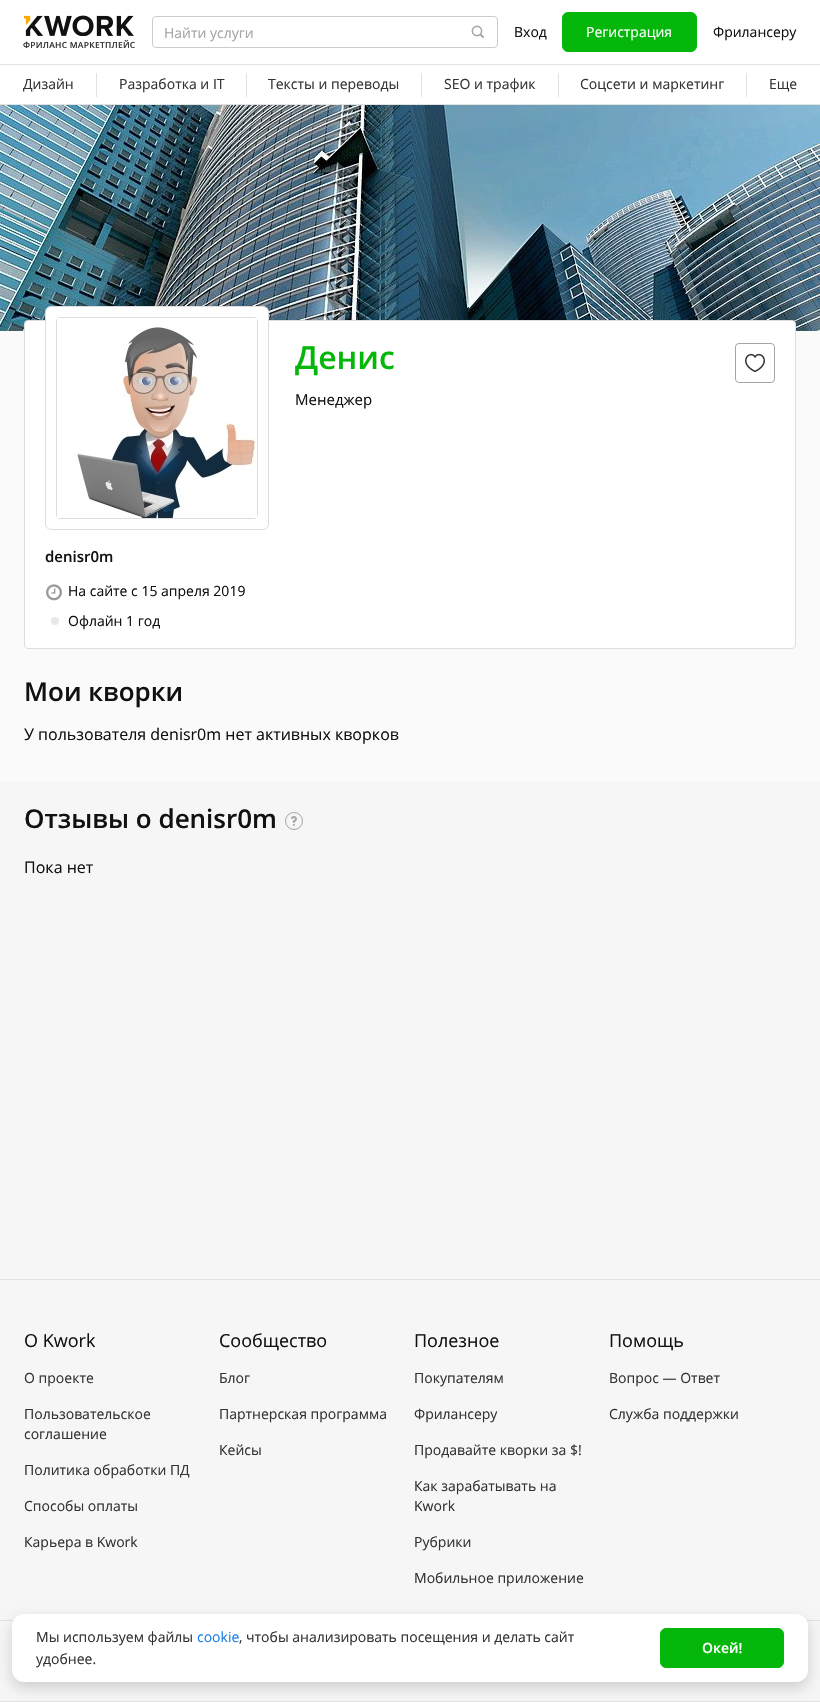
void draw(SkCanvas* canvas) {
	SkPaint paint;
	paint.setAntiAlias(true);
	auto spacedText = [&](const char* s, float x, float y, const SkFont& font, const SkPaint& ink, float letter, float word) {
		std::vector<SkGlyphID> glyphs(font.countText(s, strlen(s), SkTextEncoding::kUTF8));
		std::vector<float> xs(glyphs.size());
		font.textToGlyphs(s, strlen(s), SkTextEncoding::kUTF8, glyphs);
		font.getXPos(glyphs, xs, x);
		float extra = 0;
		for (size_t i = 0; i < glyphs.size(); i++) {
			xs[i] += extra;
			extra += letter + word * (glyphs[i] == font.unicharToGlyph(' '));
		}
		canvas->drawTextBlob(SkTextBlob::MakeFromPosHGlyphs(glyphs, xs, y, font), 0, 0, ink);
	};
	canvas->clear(0xfff6f6f6);
	paint.setColor(0xffffffff);
	canvas->drawRect(SkRect::MakeXYWH(0, 0, 820, 104), paint);
	paint.setColor(0xffe2e2e2);
	canvas->drawRect(SkRect::MakeXYWH(0, 104, 820, 1), paint);
	paint.setStroke(true);
	paint.setStrokeWidth(1);
	paint.setColor(0xffcccccc);
	canvas->drawRoundRect(SkRect::MakeXYWH(152.5, 16.5, 345, 31), 3.5, 3.5, paint);
	SkFont f1(fontMgr->matchFamilyStyle("Open Sans", SkFontStyle::Normal()), 14);
	f1.setSubpixel(true);
	paint.setStroke(false);
	paint.setColor(0xffa5a5a5);
	canvas->drawString("Найти услуги", 164, 38, f1, paint);
	canvas->drawImageRect(SkImages::DeferredFromEncodedData(SkData::MakeFromFileName("img1.png")), SkRect::MakeXYWH(471, 25, 13, 13), SkSamplingOptions());
	paint.setColor(0xff111111);
	canvas->drawString("Вход", 514, 37, f1, paint);
	paint.setColor(0xff04b70a);
	canvas->drawRoundRect(SkRect::MakeXYWH(562.5, 12.5, 134, 39), 5.5, 5.5, paint);
	paint.setStroke(true);
	canvas->drawRoundRect(SkRect::MakeXYWH(562.5, 12.5, 134, 39), 5.5, 5.5, paint);
	paint.setStroke(false);
	paint.setColor(0xffffffff);
	canvas->drawString("Регистрация", 586, 37, f1, paint);
	paint.setColor(0xff111111);
	canvas->drawString("Фрилансеру", 713, 37, f1, paint);
	canvas->drawImageRect(SkImages::DeferredFromEncodedData(SkData::MakeFromFileName("img2.png")), SkRect::MakeXYWH(24, 15, 110, 21), SkSamplingOptions());
	SkFont f2(fontMgr->matchFamilyStyle("Open Sans", SkFontStyle(600, SkFontStyle::kNormal_Width, SkFontStyle::kUpright_Slant)), 8.5);
	f2.setSubpixel(true);
	paint.setColor(0xff333333);
	spacedText("ФРИЛАНС МАРКЕТПЛЕЙС", 23, 48, f2, paint, 0.25, 0);
	paint.setColor(0xffe2e2e2);
	canvas->drawRect(SkRect::MakeXYWH(0, 64, 820, 1), paint);
	paint.setColor(0xff333333);
	canvas->drawString("Дизайн", 23, 89, f1, paint);
	paint.setColor(0xffe2e2e2);
	canvas->drawRect(SkRect::MakeXYWH(96, 73, 1, 24), paint);
	paint.setColor(0xff333333);
	canvas->drawString("Разработка и IT", 119, 89, f1, paint);
	paint.setColor(0xffe2e2e2);
	canvas->drawRect(SkRect::MakeXYWH(246, 73, 1, 24), paint);
	paint.setColor(0xff333333);
	canvas->drawString("Тексты и переводы", 268, 89, f1, paint);
	paint.setColor(0xffe2e2e2);
	canvas->drawRect(SkRect::MakeXYWH(421, 73, 1, 24), paint);
	paint.setColor(0xff333333);
	canvas->drawString("SEO и трафик", 444, 89, f1, paint);
	paint.setColor(0xffe2e2e2);
	canvas->drawRect(SkRect::MakeXYWH(558, 73, 1, 24), paint);
	paint.setColor(0xff333333);
	canvas->drawString("Соцсети и маркетинг", 580, 89, f1, paint);
	paint.setColor(0xffe2e2e2);
	canvas->drawRect(SkRect::MakeXYWH(746, 73, 1, 24), paint);
	paint.setColor(0xff333333);
	canvas->drawString("Еще", 769, 89, f1, paint);
	canvas->drawImageRect(SkImages::DeferredFromEncodedData(SkData::MakeFromFileName("img3.png")), SkRect::MakeXYWH(0, 105, 820, 226), SkSamplingOptions());
	paint.setColor(0xfffafafa);
	canvas->drawRect(SkRect::MakeXYWH(0, 331, 820, 450), paint);
	paint.setColor(0xffffffff);
	canvas->drawRoundRect(SkRect::MakeXYWH(24.5, 320.5, 771, 328), 3.5, 3.5, paint);
	paint.setStroke(true);
	paint.setColor(0xffdddddd);
	canvas->drawRoundRect(SkRect::MakeXYWH(24.5, 320.5, 771, 328), 3.5, 3.5, paint);
	SkFont f3(fontMgr->matchFamilyStyle("Open Sans", SkFontStyle(600, SkFontStyle::kNormal_Width, SkFontStyle::kUpright_Slant)), 32);
	f3.setSubpixel(true);
	paint.setStroke(false);
	paint.setColor(0xff04b70a);
	canvas->drawString("Денис", 295, 369, f3, paint);
	SkFont f4(fontMgr->matchFamilyStyle("Open Sans", SkFontStyle::Normal()), 15);
	f4.setSubpixel(true);
	paint.setColor(0xff111111);
	canvas->drawString("Менеджер", 295, 405, f4, paint);
	paint.setStroke(true);
	paint.setColor(0xffa5a5a5);
	canvas->drawRoundRect(SkRect::MakeXYWH(735.5, 343.5, 39, 39), 3.5, 3.5, paint);
	canvas->drawImageRect(SkImages::DeferredFromEncodedData(SkData::MakeFromFileName("img4.png")), SkRect::MakeXYWH(745, 353, 20, 20), SkSamplingOptions());
	paint.setStroke(false);
	paint.setColor(0xffffffff);
	canvas->drawRoundRect(SkRect::MakeXYWH(45.5, 306.5, 223, 223), 5.5, 5.5, paint);
	paint.setStroke(true);
	paint.setColor(0xffdddddd);
	canvas->drawRoundRect(SkRect::MakeXYWH(45.5, 306.5, 223, 223), 5.5, 5.5, paint);
	canvas->drawRoundRect(SkRect::MakeXYWH(56.5, 317.5, 201, 201), 3.5, 3.5, paint);
	canvas->drawImageRect(SkImages::DeferredFromEncodedData(SkData::MakeFromFileName("img5.png")), SkRect::MakeXYWH(57, 318, 200, 200), SkSamplingOptions());
	SkFont f5(fontMgr->matchFamilyStyle("Open Sans", SkFontStyle(600, SkFontStyle::kNormal_Width, SkFontStyle::kUpright_Slant)), 15);
	f5.setSubpixel(true);
	paint.setStroke(false);
	paint.setColor(0xff111111);
	canvas->drawString("denisr0m", 45, 562, f5, paint);
	canvas->drawImageRect(SkImages::DeferredFromEncodedData(SkData::MakeFromFileName("img6.png")), SkRect::MakeXYWH(46, 584, 16, 17), SkSamplingOptions());
	canvas->drawString("На сайте с 15 апреля 2019", 68, 596, f1, paint);
	paint.setColor(0xffe8e8e8);
	canvas->drawCircle(55, 621, 4, paint);
	paint.setColor(0xff111111);
	canvas->drawString("Офлайн 1 год", 68, 626, f1, paint);
	SkFont f6(fontMgr->matchFamilyStyle("Open Sans", SkFontStyle(600, SkFontStyle::kNormal_Width, SkFontStyle::kUpright_Slant)), 26);
	f6.setSubpixel(true);
	canvas->drawString("Мои кворки", 24, 701, f6, paint);
	SkFont f7(fontMgr->matchFamilyStyle("Open Sans", SkFontStyle::Normal()), 16);
	f7.setSubpixel(true);
	canvas->drawString("У пользователя denisr0m нет активных кворков", 24, 740, f7, paint);
	canvas->drawString("Отзывы о denisr0m", 24, 828, f6, paint);
	paint.setStroke(true);
	paint.setColor(0xffa5a5a5);
	canvas->drawCircle(294, 821, 8.5, paint);
	canvas->drawImageRect(SkImages::DeferredFromEncodedData(SkData::MakeFromFileName("img7.png")), SkRect::MakeXYWH(291, 816, 6, 10), SkSamplingOptions());
	paint.setStroke(false);
	paint.setColor(0xff111111);
	canvas->drawString("Пока нет", 24, 873, f7, paint);
	paint.setColor(0xffe2e2e2);
	canvas->drawRect(SkRect::MakeXYWH(0, 1279, 820, 1), paint);
	SkFont f8(fontMgr->matchFamilyStyle("Open Sans", SkFontStyle::Normal()), 18);
	f8.setSubpixel(true);
	paint.setColor(0xff111111);
	canvas->drawString("О Kwork", 24, 1347, f8, paint);
	paint.setColor(0xff333333);
	canvas->drawString("О проекте", 24, 1383, f1, paint);
	canvas->drawString("Пользовательское", 24, 1419, f1, paint);
	canvas->drawString("соглашение", 24, 1439, f1, paint);
	canvas->drawString("Политика обработки ПД", 24, 1475, f1, paint);
	canvas->drawString("Способы оплаты", 24, 1511, f1, paint);
	canvas->drawString("Карьера в Kwork", 24, 1547, f1, paint);
	paint.setColor(0xff111111);
	canvas->drawString("Сообщество", 219, 1347, f8, paint);
	paint.setColor(0xff333333);
	canvas->drawString("Блог", 219, 1383, f1, paint);
	canvas->drawString("Партнерская программа", 219, 1419, f1, paint);
	canvas->drawString("Кейсы", 219, 1455, f1, paint);
	paint.setColor(0xff111111);
	canvas->drawString("Полезное", 414, 1347, f8, paint);
	paint.setColor(0xff333333);
	canvas->drawString("Покупателям", 414, 1383, f1, paint);
	canvas->drawString("Фрилансеру", 414, 1419, f1, paint);
	canvas->drawString("Продавайте кворки за $!", 414, 1455, f1, paint);
	canvas->drawString("Как зарабатывать на", 414, 1491, f1, paint);
	canvas->drawString("Kwork", 414, 1511, f1, paint);
	canvas->drawString("Рубрики", 414, 1547, f1, paint);
	canvas->drawString("Мобильное приложение", 414, 1583, f1, paint);
	paint.setColor(0xff111111);
	canvas->drawString("Помощь", 609, 1347, f8, paint);
	paint.setColor(0xff333333);
	canvas->drawString("Вопрос — Ответ", 609, 1383, f1, paint);
	canvas->drawString("Служба поддержки", 609, 1419, f1, paint);
	paint.setColor(0xffe2e2e2);
	canvas->drawRect(SkRect::MakeXYWH(0, 1620, 820, 1), paint);
	canvas->drawRect(SkRect::MakeXYWH(0, 1701, 820, 1), paint);
	paint.setColor(0x29000000);
	paint.setMaskFilter(SkMaskFilter::MakeBlur(kNormal_SkBlurStyle, 7));
	canvas->drawRoundRect(SkRect::MakeXYWH(12, 1620, 796, 68), 12, 12, paint);
	paint.setMaskFilter(nullptr);
	paint.setColor(0xffffffff);
	canvas->drawRoundRect(SkRect::MakeXYWH(12, 1614, 796, 68), 12, 12, paint);
	paint.setColor(0xff333333);
	canvas->drawString("Мы используем файлы", 36, 1642, f1, paint);
	paint.setColor(0xff177de5);
	canvas->drawString("cookie", 197, 1642, f1, paint);
	paint.setColor(0xff333333);
	canvas->drawString(", чтобы анализировать посещения и делать сайт", 239, 1642, f1, paint);
	canvas->drawString("удобнее.", 36, 1664, f1, paint);
	paint.setColor(0xff04b70a);
	canvas->drawRoundRect(SkRect::MakeXYWH(660.5, 1628.5, 123, 39), 5.5, 5.5, paint);
	paint.setStroke(true);
	canvas->drawRoundRect(SkRect::MakeXYWH(660.5, 1628.5, 123, 39), 5.5, 5.5, paint);
	SkFont f9(fontMgr->matchFamilyStyle("Open Sans", SkFontStyle(600, SkFontStyle::kNormal_Width, SkFontStyle::kUpright_Slant)), 14);
	f9.setSubpixel(true);
	paint.setStroke(false);
	paint.setColor(0xffffffff);
	canvas->drawString("Окей!", 702, 1653, f9, paint);
}
